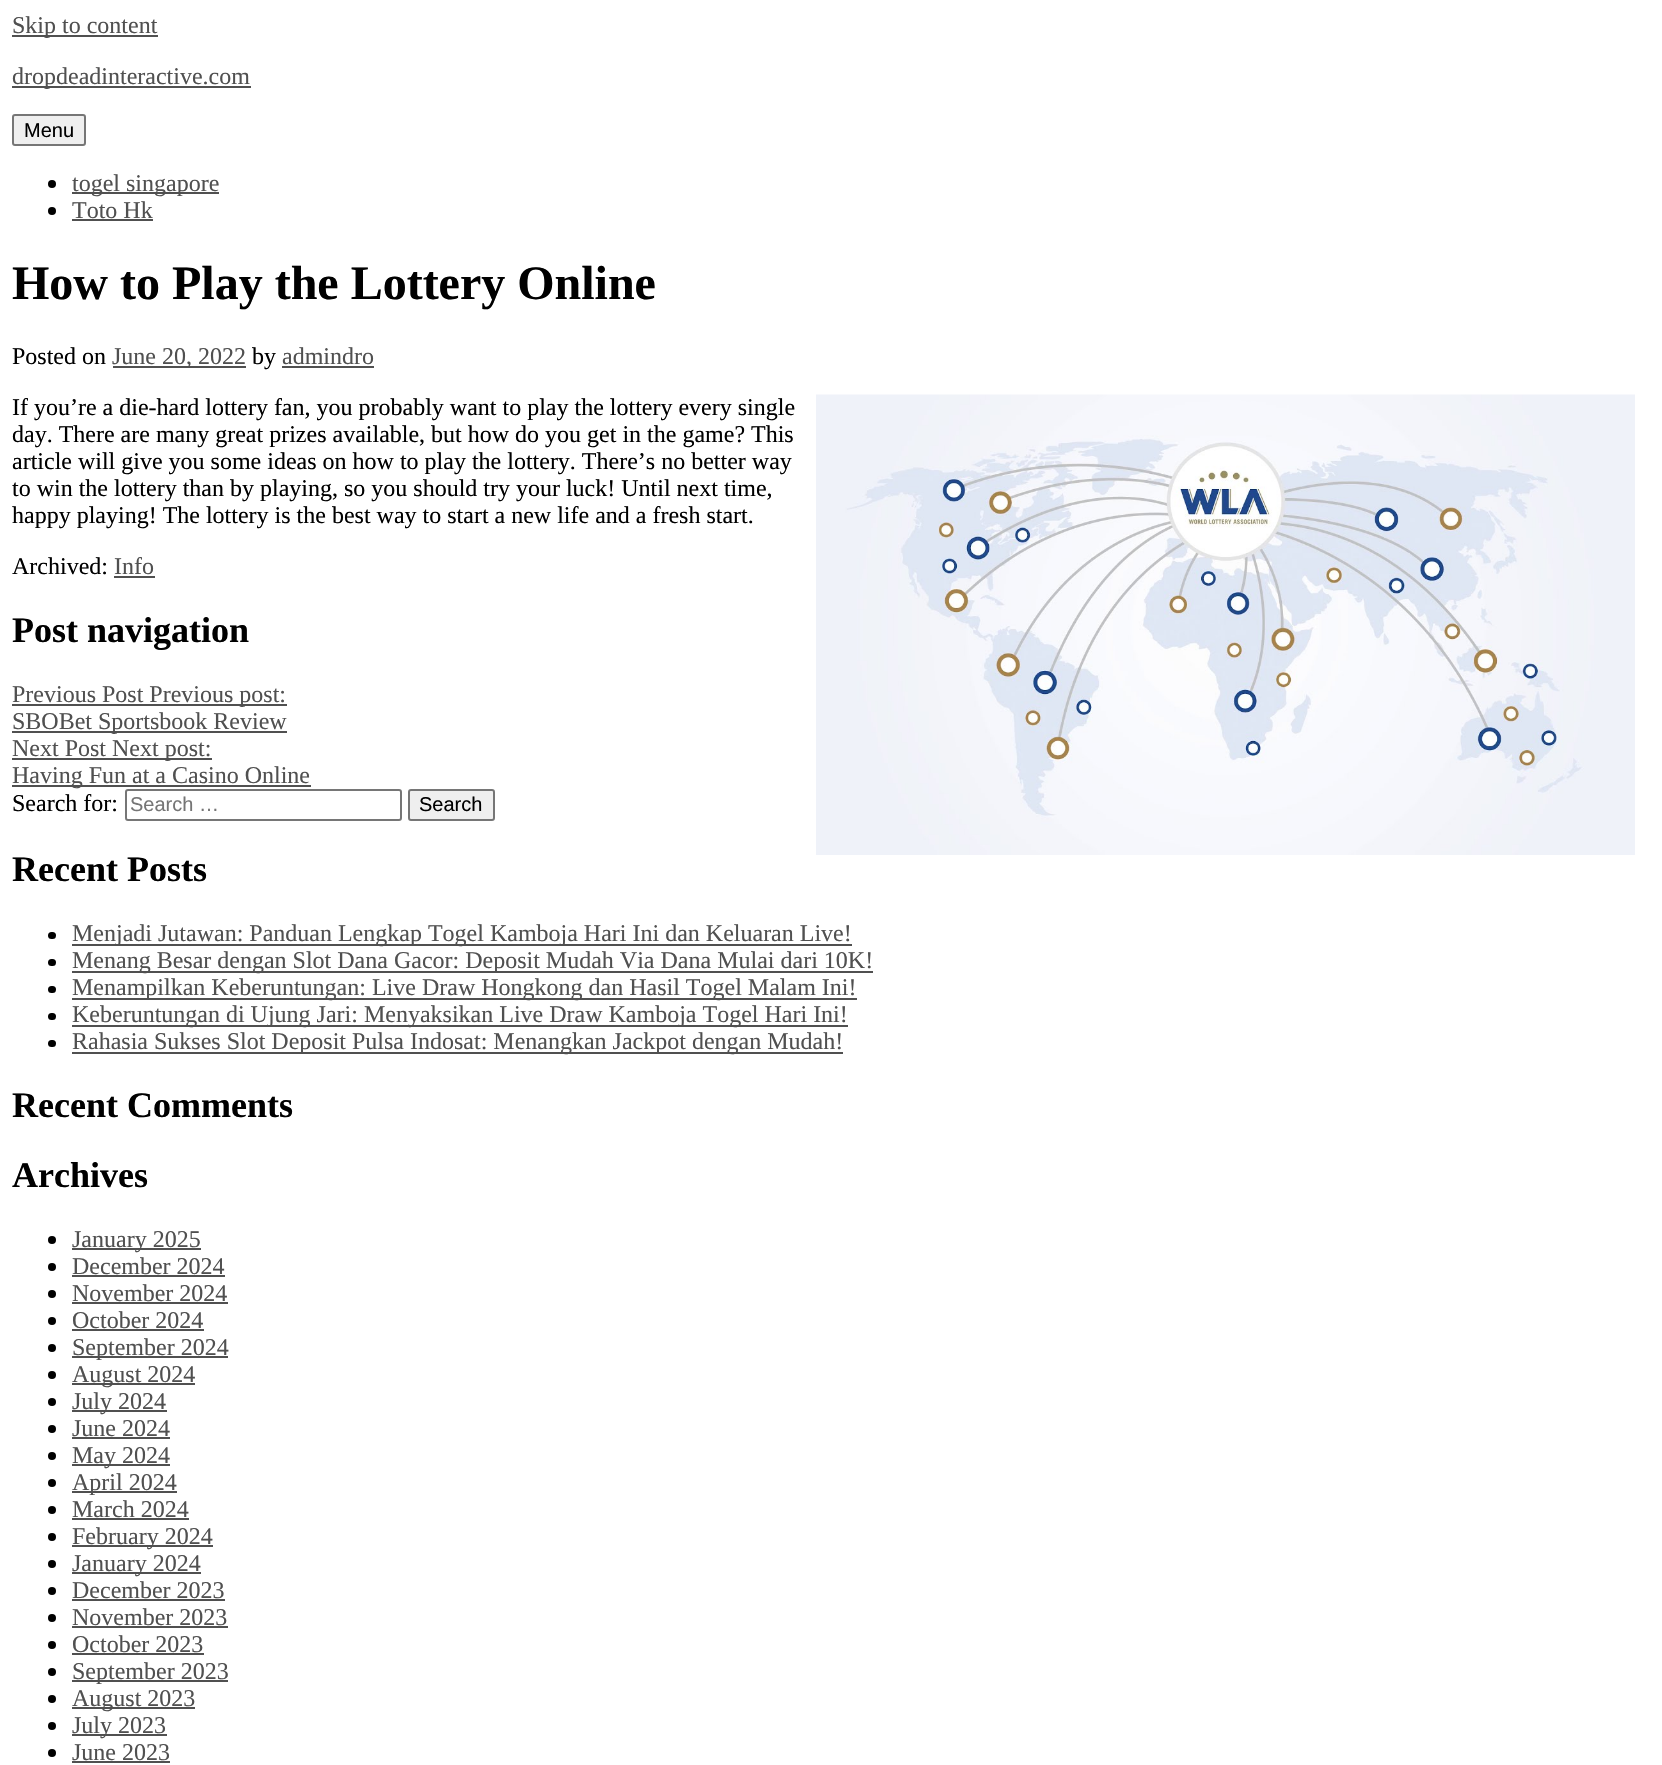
void draw(SkCanvas* canvas) {
	SkPaint paint;
	paint.setAntiAlias(true);
	canvas->clear(0xffffffff);
	paint.setColor(0xff505050);
	canvas->drawRect(SkRect::MakeXYWH(12, 35, 146, 2), paint);
	SkFont f1(fontMgr->matchFamilyStyle("Liberation Serif", SkFontStyle::Normal()), 24);
	f1.setSubpixel(true);
	canvas->drawString("Skip to content", 12, 33, f1, paint);
	canvas->drawRect(SkRect::MakeXYWH(12, 86, 239, 2), paint);
	canvas->drawString("dropdeadinteractive.com", 12, 84, f1, paint);
	paint.setColor(0xffefefef);
	canvas->drawRoundRect(SkRect::MakeXYWH(13, 115, 72, 30), 2, 2, paint);
	paint.setStroke(true);
	paint.setStrokeWidth(2);
	paint.setColor(0xff767676);
	canvas->drawRoundRect(SkRect::MakeXYWH(13, 115, 72, 30), 2, 2, paint);
	SkFont f2(fontMgr->matchFamilyStyle("Liberation Sans", SkFontStyle::Normal()), 20);
	f2.setSubpixel(true);
	paint.setStroke(false);
	paint.setColor(0xff000000);
	canvas->drawString("Menu", 24, 137, f2, paint);
	canvas->drawCircle(52, 184, 4, paint);
	paint.setColor(0xff505050);
	canvas->drawRect(SkRect::MakeXYWH(72, 192, 147, 2), paint);
	canvas->drawString("togel singapore", 72, 191, f1, paint);
	paint.setColor(0xff000000);
	canvas->drawCircle(52, 211, 4, paint);
	paint.setColor(0xff505050);
	canvas->drawString("Toto Hk", 72, 218, f1, paint);
	canvas->drawRect(SkRect::MakeXYWH(72, 219, 81, 2), paint);
	SkFont f3(fontMgr->matchFamilyStyle("Liberation Serif", SkFontStyle::Bold()), 48);
	f3.setSubpixel(true);
	paint.setColor(0xff000000);
	canvas->drawString("How to Play the Lottery Online", 12, 299, f3, paint);
	canvas->drawString("Posted on", 12, 364, f1, paint);
	paint.setColor(0xff505050);
	canvas->drawRect(SkRect::MakeXYWH(113, 366, 133, 2), paint);
	canvas->drawString("June 20, 2022", 112, 364, f1, paint);
	paint.setColor(0xff000000);
	canvas->drawString("by", 252, 364, f1, paint);
	paint.setColor(0xff505050);
	canvas->drawString("admindro", 282, 364, f1, paint);
	canvas->drawRect(SkRect::MakeXYWH(282, 366, 92, 2), paint);
	paint.setColor(0xff000000);
	canvas->drawString("If you’re a die-hard lottery fan, you probably want to play the lottery every single", 12, 415, f1, paint);
	canvas->drawString("day. There are many great prizes available, but how do you get in the game? This", 12, 442, f1, paint);
	canvas->drawString("article will give you some ideas on how to play the lottery. There’s no better way", 12, 469, f1, paint);
	canvas->drawString("to win the lottery than by playing, so you should try your luck! Until next time,", 12, 496, f1, paint);
	canvas->drawString("happy playing! The lottery is the best way to start a new life and a fresh start.", 12, 523, f1, paint);
	canvas->drawImageRect(SkImages::DeferredFromEncodedData(SkData::MakeFromFileName("img1.png")), SkRect::MakeXYWH(816, 394, 819, 461), SkSamplingOptions());
	canvas->drawString("Archived:", 12, 574, f1, paint);
	paint.setColor(0xff505050);
	canvas->drawString("Info", 114, 574, f1, paint);
	canvas->drawRect(SkRect::MakeXYWH(114, 576, 41, 2), paint);
	SkFont f4(fontMgr->matchFamilyStyle("Liberation Serif", SkFontStyle::Bold()), 36);
	f4.setSubpixel(true);
	paint.setColor(0xff000000);
	canvas->drawString("Post navigation", 12, 642, f4, paint);
	paint.setColor(0xff505050);
	canvas->drawRect(SkRect::MakeXYWH(12, 704, 275, 2), paint);
	canvas->drawString("Previous Post Previous post:", 12, 702, f1, paint);
	canvas->drawRect(SkRect::MakeXYWH(12, 731, 275, 2), paint);
	canvas->drawString("SBOBet Sportsbook Review", 12, 729, f1, paint);
	canvas->drawRect(SkRect::MakeXYWH(12, 758, 200, 2), paint);
	canvas->drawString("Next Post Next post:", 12, 756, f1, paint);
	canvas->drawRect(SkRect::MakeXYWH(12, 785, 299, 2), paint);
	canvas->drawString("Having Fun at a Casino Online", 12, 783, f1, paint);
	paint.setColor(0xff000000);
	canvas->drawString("Search for:", 12, 811, f1, paint);
	paint.setStroke(true);
	paint.setColor(0xff767676);
	canvas->drawRoundRect(SkRect::MakeXYWH(126, 790, 275, 30), 2, 2, paint);
	paint.setStroke(false);
	paint.setColor(0xff757575);
	canvas->drawString("Search …", 130, 811, f2, paint);
	paint.setColor(0xffefefef);
	canvas->drawRoundRect(SkRect::MakeXYWH(409, 790, 85, 30), 2, 2, paint);
	paint.setStroke(true);
	paint.setColor(0xff767676);
	canvas->drawRoundRect(SkRect::MakeXYWH(409, 790, 85, 30), 2, 2, paint);
	paint.setStroke(false);
	paint.setColor(0xff000000);
	canvas->drawString("Search", 419, 811, f2, paint);
	canvas->drawString("Recent Posts", 12, 881, f4, paint);
	canvas->drawRoundRect(SkRect::MakeXYWH(48, 932, 8, 7), 3.5, 3.5, paint);
	paint.setColor(0xff505050);
	canvas->drawRect(SkRect::MakeXYWH(72, 944, 780, 2), paint);
	canvas->drawString("Menjadi Jutawan: Panduan Lengkap Togel Kamboja Hari Ini dan Keluaran Live!", 72, 941, f1, paint);
	paint.setColor(0xff000000);
	canvas->drawRoundRect(SkRect::MakeXYWH(48, 959, 8, 7), 3.5, 3.5, paint);
	paint.setColor(0xff505050);
	canvas->drawRect(SkRect::MakeXYWH(72, 971, 801, 2), paint);
	canvas->drawString("Menang Besar dengan Slot Dana Gacor: Deposit Mudah Via Dana Mulai dari 10K!", 72, 968, f1, paint);
	paint.setColor(0xff000000);
	canvas->drawRoundRect(SkRect::MakeXYWH(48, 986, 8, 7), 3.5, 3.5, paint);
	paint.setColor(0xff505050);
	canvas->drawRect(SkRect::MakeXYWH(72, 998, 785, 2), paint);
	canvas->drawString("Menampilkan Keberuntungan: Live Draw Hongkong dan Hasil Togel Malam Ini!", 72, 995, f1, paint);
	paint.setColor(0xff000000);
	canvas->drawRoundRect(SkRect::MakeXYWH(48, 1013, 8, 7), 3.5, 3.5, paint);
	paint.setColor(0xff505050);
	canvas->drawRect(SkRect::MakeXYWH(72, 1025, 776, 2), paint);
	canvas->drawString("Keberuntungan di Ujung Jari: Menyaksikan Live Draw Kamboja Togel Hari Ini!", 72, 1022, f1, paint);
	paint.setColor(0xff000000);
	canvas->drawRoundRect(SkRect::MakeXYWH(48, 1040, 8, 7), 3.5, 3.5, paint);
	paint.setColor(0xff505050);
	canvas->drawRect(SkRect::MakeXYWH(72, 1052, 771, 2), paint);
	canvas->drawString("Rahasia Sukses Slot Deposit Pulsa Indosat: Menangkan Jackpot dengan Mudah!", 72, 1049, f1, paint);
	paint.setColor(0xff000000);
	canvas->drawString("Recent Comments", 12, 1117, f4, paint);
	canvas->drawString("Archives", 12, 1187, f4, paint);
	canvas->drawCircle(52, 1240, 4, paint);
	paint.setColor(0xff505050);
	canvas->drawRect(SkRect::MakeXYWH(72, 1248, 129, 2), paint);
	canvas->drawString("January 2025", 72, 1247, f1, paint);
	paint.setColor(0xff000000);
	canvas->drawCircle(52, 1267, 4, paint);
	paint.setColor(0xff505050);
	canvas->drawString("December 2024", 72, 1274, f1, paint);
	canvas->drawRect(SkRect::MakeXYWH(72, 1275, 153, 2), paint);
	paint.setColor(0xff000000);
	canvas->drawCircle(52, 1294, 4, paint);
	paint.setColor(0xff505050);
	canvas->drawString("November 2024", 72, 1301, f1, paint);
	canvas->drawRect(SkRect::MakeXYWH(72, 1302, 156, 2), paint);
	paint.setColor(0xff000000);
	canvas->drawCircle(52, 1321, 4, paint);
	paint.setColor(0xff505050);
	canvas->drawString("October 2024", 72, 1328, f1, paint);
	canvas->drawRect(SkRect::MakeXYWH(72, 1329, 132, 2), paint);
	paint.setColor(0xff000000);
	canvas->drawCircle(52, 1348, 4, paint);
	paint.setColor(0xff505050);
	canvas->drawRect(SkRect::MakeXYWH(72, 1356, 156, 2), paint);
	canvas->drawString("September 2024", 72, 1355, f1, paint);
	paint.setColor(0xff000000);
	canvas->drawCircle(52, 1375, 4, paint);
	paint.setColor(0xff505050);
	canvas->drawRect(SkRect::MakeXYWH(72, 1383, 123, 2), paint);
	canvas->drawString("August 2024", 72, 1382, f1, paint);
	paint.setColor(0xff000000);
	canvas->drawCircle(52, 1402, 4, paint);
	paint.setColor(0xff505050);
	canvas->drawRect(SkRect::MakeXYWH(72, 1410, 95, 2), paint);
	canvas->drawString("July 2024", 72, 1409, f1, paint);
	paint.setColor(0xff000000);
	canvas->drawCircle(52, 1429, 4, paint);
	paint.setColor(0xff505050);
	canvas->drawString("June 2024", 72, 1436, f1, paint);
	canvas->drawRect(SkRect::MakeXYWH(72, 1437, 98, 2), paint);
	paint.setColor(0xff000000);
	canvas->drawCircle(52, 1456, 4, paint);
	paint.setColor(0xff505050);
	canvas->drawRect(SkRect::MakeXYWH(72, 1464, 98, 2), paint);
	canvas->drawString("May 2024", 72, 1463, f1, paint);
	paint.setColor(0xff000000);
	canvas->drawCircle(52, 1483, 4, paint);
	paint.setColor(0xff505050);
	canvas->drawRect(SkRect::MakeXYWH(72, 1491, 105, 2), paint);
	canvas->drawString("April 2024", 72, 1490, f1, paint);
	paint.setColor(0xff000000);
	canvas->drawCircle(52, 1510, 4, paint);
	paint.setColor(0xff505050);
	canvas->drawString("March 2024", 72, 1517, f1, paint);
	canvas->drawRect(SkRect::MakeXYWH(72, 1518, 117, 2), paint);
	paint.setColor(0xff000000);
	canvas->drawCircle(52, 1537, 4, paint);
	paint.setColor(0xff505050);
	canvas->drawRect(SkRect::MakeXYWH(72, 1545, 141, 2), paint);
	canvas->drawString("February 2024", 72, 1544, f1, paint);
	paint.setColor(0xff000000);
	canvas->drawCircle(52, 1564, 4, paint);
	paint.setColor(0xff505050);
	canvas->drawRect(SkRect::MakeXYWH(72, 1572, 129, 2), paint);
	canvas->drawString("January 2024", 72, 1571, f1, paint);
	paint.setColor(0xff000000);
	canvas->drawCircle(52, 1591, 4, paint);
	paint.setColor(0xff505050);
	canvas->drawString("December 2023", 72, 1598, f1, paint);
	canvas->drawRect(SkRect::MakeXYWH(72, 1599, 153, 2), paint);
	paint.setColor(0xff000000);
	canvas->drawCircle(52, 1618, 4, paint);
	paint.setColor(0xff505050);
	canvas->drawString("November 2023", 72, 1625, f1, paint);
	canvas->drawRect(SkRect::MakeXYWH(72, 1626, 156, 2), paint);
	paint.setColor(0xff000000);
	canvas->drawCircle(52, 1645, 4, paint);
	paint.setColor(0xff505050);
	canvas->drawString("October 2023", 72, 1652, f1, paint);
	canvas->drawRect(SkRect::MakeXYWH(72, 1653, 132, 2), paint);
	paint.setColor(0xff000000);
	canvas->drawCircle(52, 1672, 4, paint);
	paint.setColor(0xff505050);
	canvas->drawRect(SkRect::MakeXYWH(72, 1680, 156, 2), paint);
	canvas->drawString("September 2023", 72, 1679, f1, paint);
	paint.setColor(0xff000000);
	canvas->drawCircle(52, 1699, 4, paint);
	paint.setColor(0xff505050);
	canvas->drawRect(SkRect::MakeXYWH(72, 1707, 123, 2), paint);
	canvas->drawString("August 2023", 72, 1706, f1, paint);
	paint.setColor(0xff000000);
	canvas->drawCircle(52, 1726, 4, paint);
	paint.setColor(0xff505050);
	canvas->drawRect(SkRect::MakeXYWH(72, 1734, 95, 2), paint);
	canvas->drawString("July 2023", 72, 1733, f1, paint);
	paint.setColor(0xff000000);
	canvas->drawCircle(52, 1753, 4, paint);
	paint.setColor(0xff505050);
	canvas->drawString("June 2023", 72, 1760, f1, paint);
	canvas->drawRect(SkRect::MakeXYWH(72, 1761, 98, 2), paint);
}
